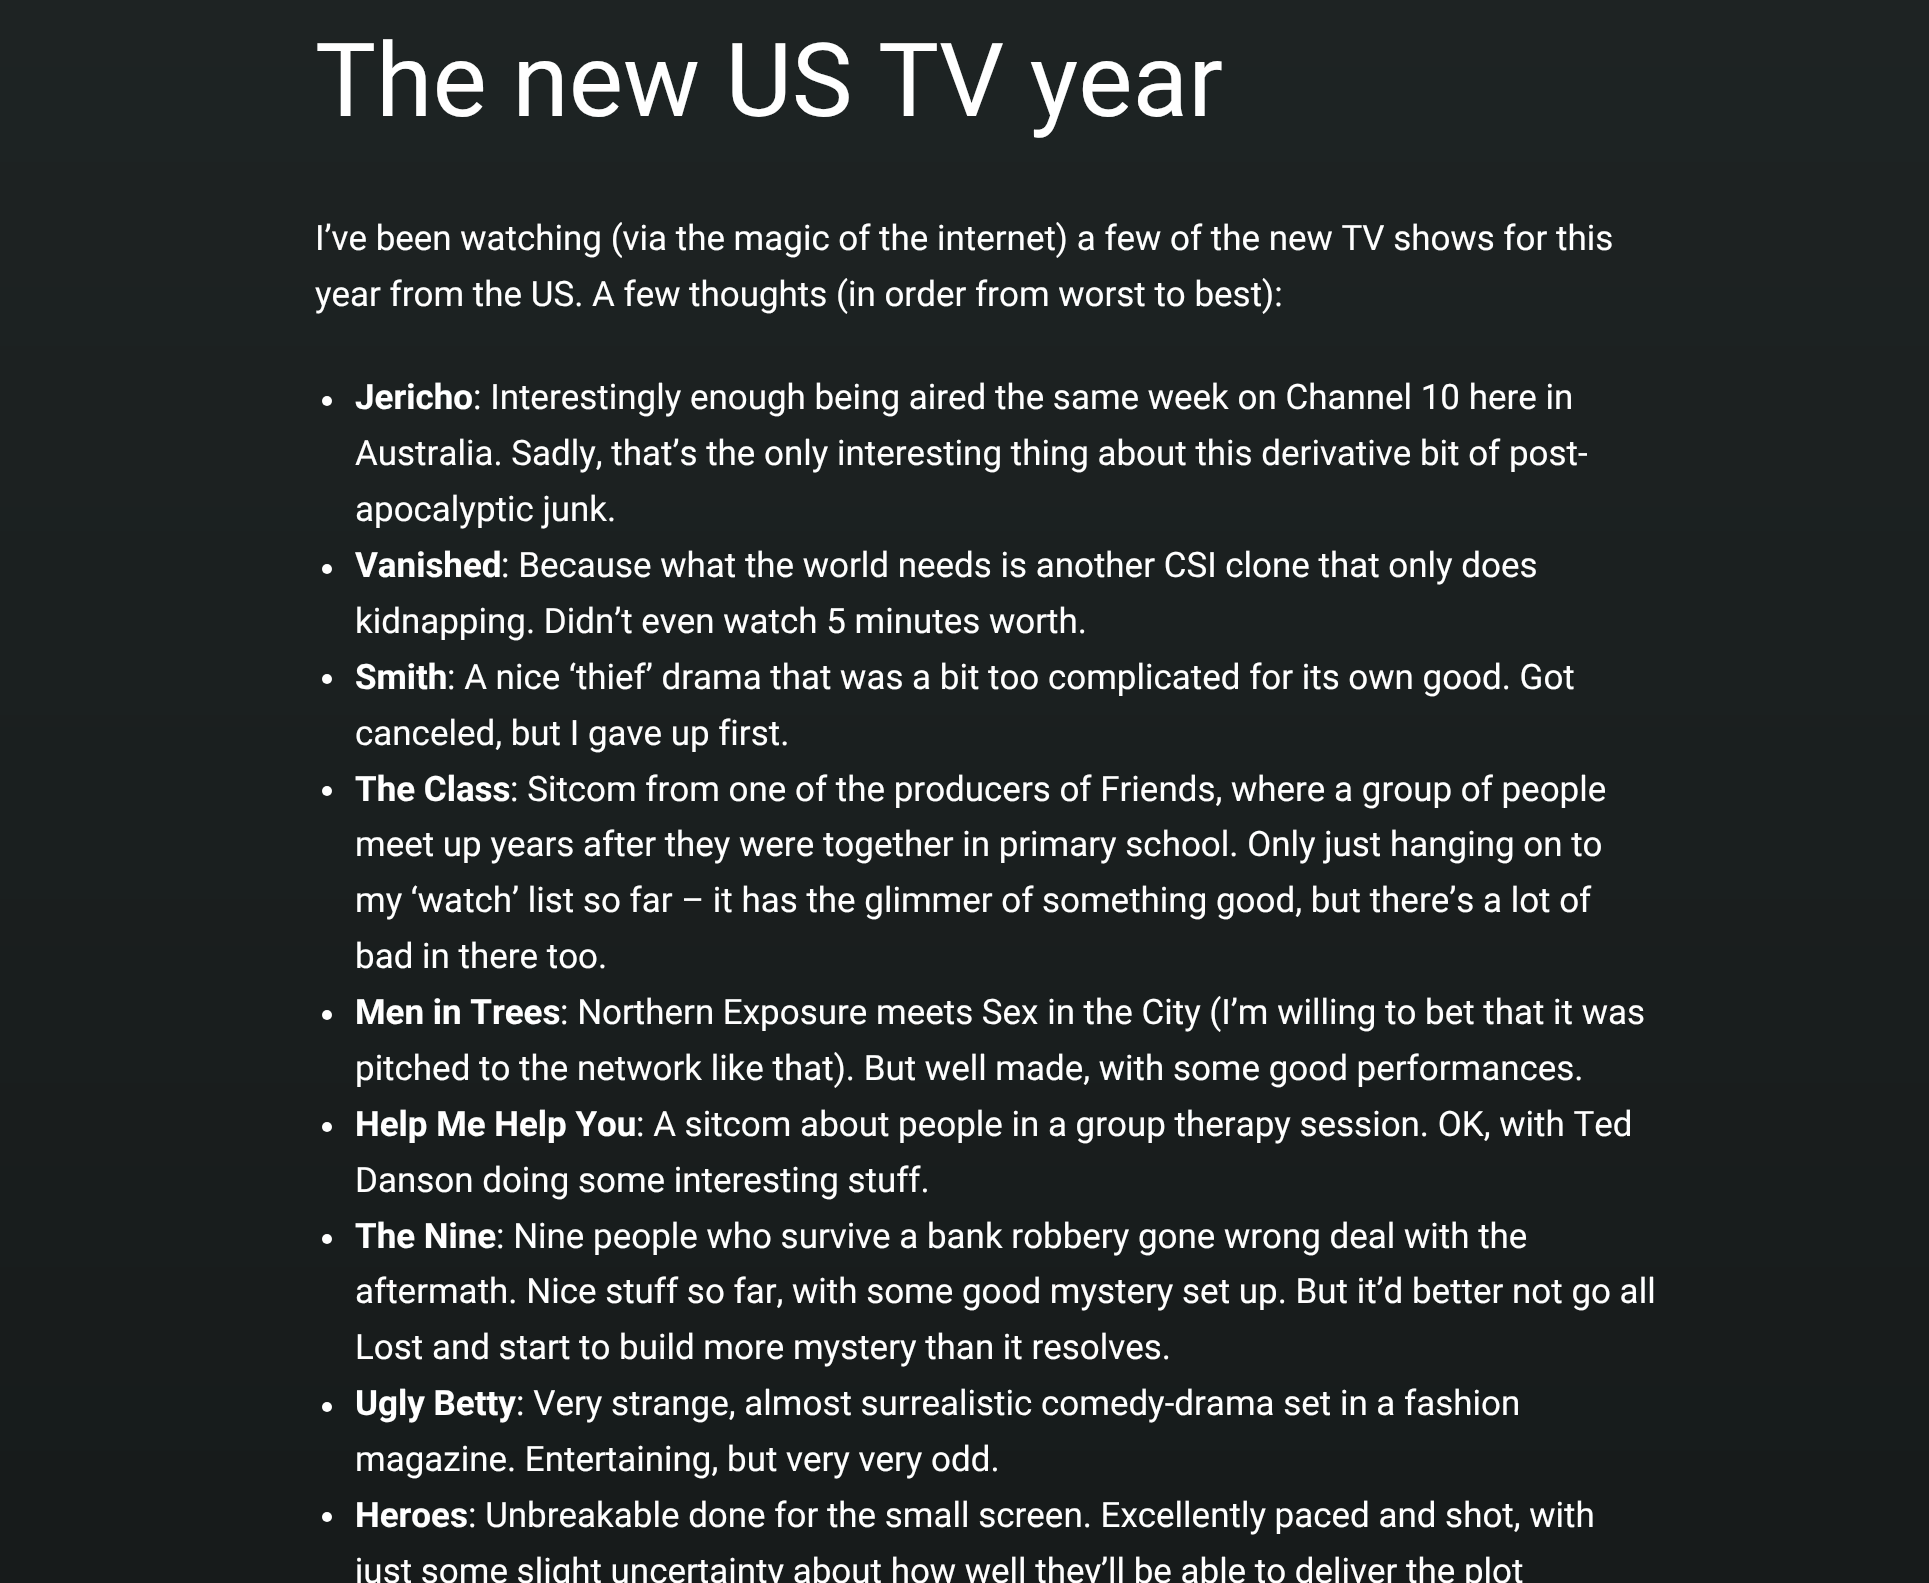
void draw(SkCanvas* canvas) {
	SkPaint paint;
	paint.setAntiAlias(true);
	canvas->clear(0xffffffff);
	{
		const SkColor colors[] = {0xff202626, 0xff010101};
		const float stops[] = {0, 1};
		const SkPoint ends[] = {{965, -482}, {965, 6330}};
		paint.setShader(SkGradientShader::MakeLinear(ends, colors, stops, 2, SkTileMode::kClamp));
		paint.setAlpha(255);
	}
	canvas->drawRect(SkRect::MakeXYWH(0, 0, 1929, 1583), paint);
	SkFont f1(fontMgr->matchFamilyStyle("Roboto", SkFontStyle::Normal()), 102.4);
	f1.setSubpixel(true);
	paint.setShader(nullptr);
	paint.setColor(0xffffffff);
	canvas->drawString("The new US TV year", 315, 116, f1, paint);
	SkFont f2(fontMgr->matchFamilyStyle("Roboto", SkFontStyle::Normal()), 34.95);
	f2.setSubpixel(true);
	canvas->drawString("I’ve been watching (via the magic of the internet) a few of the new TV shows for this", 315, 250, f2, paint);
	canvas->drawString("year from the US. A few thoughts (in order from worst to best):", 315, 306, f2, paint);
	canvas->drawCircle(327, 401, 5, paint);
	SkFont f3(fontMgr->matchFamilyStyle("Roboto", SkFontStyle::Bold()), 34.95);
	f3.setSubpixel(true);
	canvas->drawString("Jericho", 355, 409, f3, paint);
	canvas->drawString(": Interestingly enough being aired the same week on Channel 10 here in", 473, 409, f2, paint);
	canvas->drawString("Australia. Sadly, that’s the only interesting thing about this derivative bit of post-", 355, 465, f2, paint);
	canvas->drawString("apocalyptic junk.", 355, 521, f2, paint);
	canvas->drawCircle(327, 569, 5, paint);
	canvas->drawString("Vanished", 355, 577, f3, paint);
	canvas->drawString(": Because what the world needs is another CSI clone that only does", 501, 577, f2, paint);
	canvas->drawString("kidnapping. Didn’t even watch 5 minutes worth.", 355, 633, f2, paint);
	canvas->drawCircle(327, 679, 5, paint);
	canvas->drawString("Smith", 355, 689, f3, paint);
	canvas->drawString(": A nice ‘thief’ drama that was a bit too complicated for its own good. Got", 447, 689, f2, paint);
	canvas->drawString("canceled, but I gave up first.", 355, 745, f2, paint);
	canvas->drawCircle(327, 791, 5, paint);
	canvas->drawString("The Class", 355, 801, f3, paint);
	canvas->drawString(": Sitcom from one of the producers of Friends, where a group of people", 510, 801, f2, paint);
	canvas->drawString("meet up years after they were together in primary school. Only just hanging on to", 355, 856, f2, paint);
	canvas->drawString("my ‘watch’ list so far – it has the glimmer of something good, but there’s a lot of", 355, 912, f2, paint);
	canvas->drawString("bad in there too.", 355, 968, f2, paint);
	canvas->drawCircle(327, 1015, 5, paint);
	canvas->drawString("Men in Trees", 355, 1024, f3, paint);
	canvas->drawString(": Northern Exposure meets Sex in the City (I’m willing to bet that it was", 560, 1024, f2, paint);
	canvas->drawString("pitched to the network like that). But well made, with some good performances.", 355, 1080, f2, paint);
	canvas->drawCircle(327, 1127, 5, paint);
	canvas->drawString("Help Me Help You", 355, 1136, f3, paint);
	canvas->drawString(": A sitcom about people in a group therapy session. OK, with Ted", 636, 1136, f2, paint);
	canvas->drawString("Danson doing some interesting stuff.", 355, 1192, f2, paint);
	canvas->drawCircle(327, 1239, 5, paint);
	canvas->drawString("The Nine", 355, 1248, f3, paint);
	canvas->drawString(": Nine people who survive a bank robbery gone wrong deal with the", 496, 1248, f2, paint);
	canvas->drawString("aftermath. Nice stuff so far, with some good mystery set up. But it’d better not go all", 355, 1303, f2, paint);
	canvas->drawString("Lost and start to build more mystery than it resolves.", 355, 1359, f2, paint);
	canvas->drawCircle(327, 1407, 5, paint);
	canvas->drawString("Ugly Betty", 355, 1415, f3, paint);
	canvas->drawString(": Very strange, almost surrealistic comedy-drama set in a fashion", 516, 1415, f2, paint);
	canvas->drawString("magazine. Entertaining, but very very odd.", 355, 1471, f2, paint);
	canvas->drawCircle(327, 1517, 5, paint);
	canvas->drawString("Heroes", 355, 1527, f3, paint);
	canvas->drawString(": Unbreakable done for the small screen. Excellently paced and shot, with", 468, 1527, f2, paint);
	canvas->drawString("just some slight uncertainty about how well they’ll be able to deliver the plot", 355, 1583, f2, paint);
}
